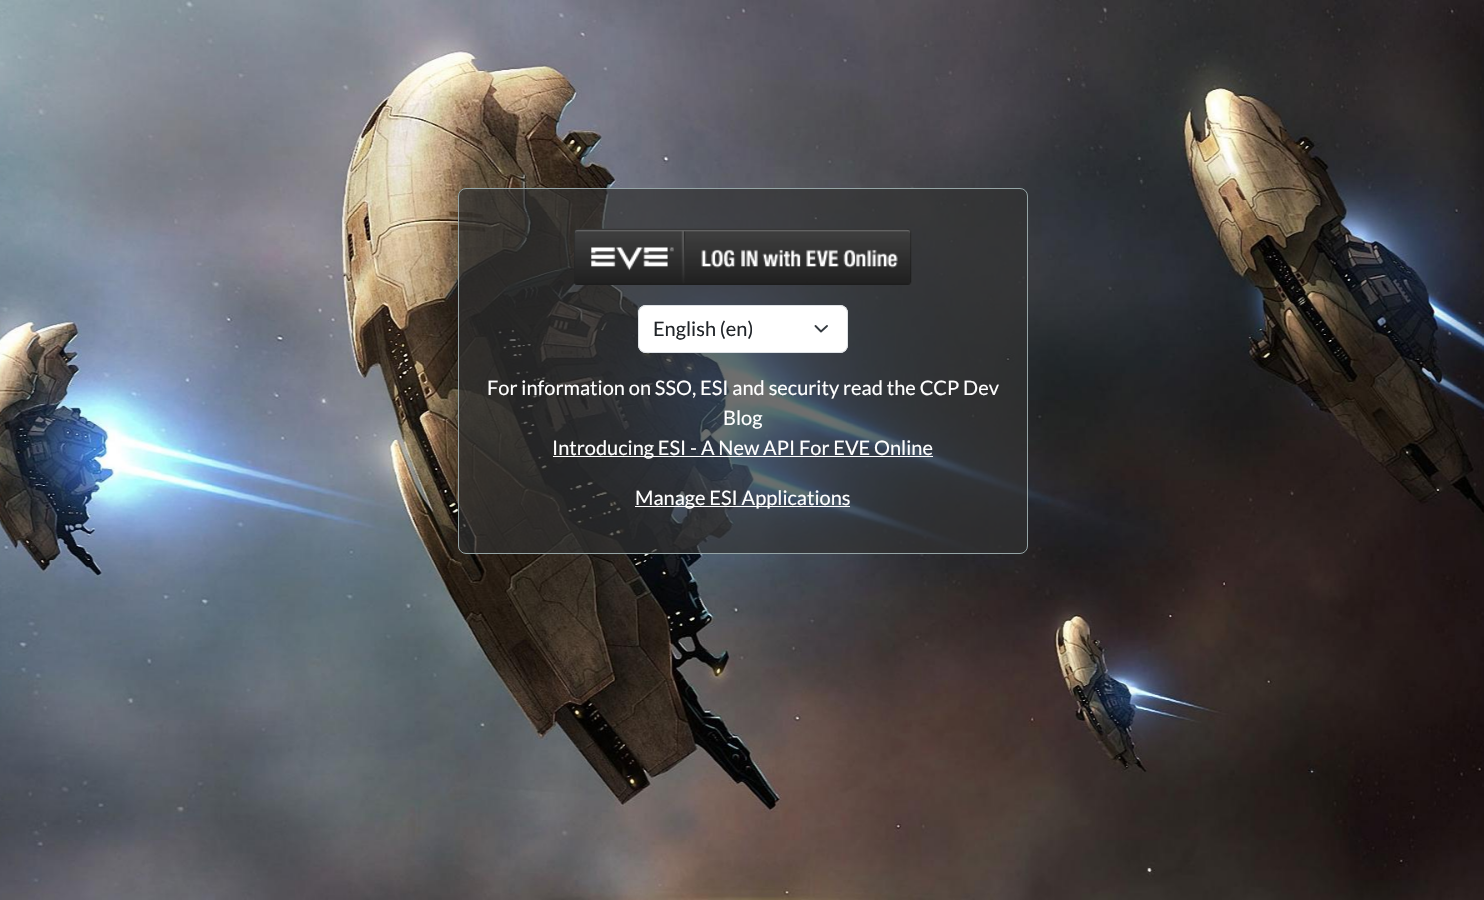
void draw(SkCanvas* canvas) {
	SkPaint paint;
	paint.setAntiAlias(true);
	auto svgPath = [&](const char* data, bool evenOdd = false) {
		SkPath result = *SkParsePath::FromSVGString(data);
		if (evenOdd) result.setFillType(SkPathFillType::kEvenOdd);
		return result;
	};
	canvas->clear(0xffffffff);
	canvas->drawImageRect(SkImages::DeferredFromEncodedData(SkData::MakeFromFileName("img1.png")), SkRect::MakeXYWH(0, 0, 1484, 900), SkSamplingOptions());
	paint.setColor(0xb3303030);
	canvas->drawRoundRect(SkRect::MakeXYWH(458.5, 188.5, 569, 365), 7.5, 7.5, paint);
	paint.setStroke(true);
	paint.setStrokeWidth(1);
	paint.setColor(0xff95a5a6);
	canvas->drawRoundRect(SkRect::MakeXYWH(458.5, 188.5, 569, 365), 7.5, 7.5, paint);
	canvas->drawImageRect(SkImages::DeferredFromEncodedData(SkData::MakeFromFileName("img2.png")), SkRect::MakeXYWH(574, 228, 338, 57), SkSamplingOptions());
	paint.setStroke(false);
	paint.setColor(0xffffffff);
	canvas->drawRoundRect(SkRect::MakeXYWH(638, 305, 210, 48), 8, 8, paint);
	paint.setStroke(true);
	paint.setStrokeWidth(1.9);
	paint.setStrokeCap(SkPaint::kRound_Cap);
	paint.setStrokeJoin(SkPaint::kRound_Join);
	paint.setColor(0xff343a40);
	canvas->drawPath(svgPath("M815.5 326L821 331.5L827 326"), paint);
	paint.setStrokeWidth(1);
	paint.setStrokeCap(SkPaint::kButt_Cap);
	paint.setStrokeJoin(SkPaint::kMiter_Join);
	paint.setColor(0xffdee2e6);
	canvas->drawRoundRect(SkRect::MakeXYWH(638.5, 305.5, 209, 47), 7.5, 7.5, paint);
	SkFont f1(fontMgr->matchFamilyStyle("Lato", SkFontStyle::Normal()), 20);
	f1.setSubpixel(true);
	paint.setStroke(false);
	paint.setColor(0xff212529);
	canvas->drawString("English (en)", 653, 336, f1, paint);
	paint.setColor(0xffffffff);
	canvas->drawString("For information on SSO, ESI and security read the CCP Dev", 487, 395, f1, paint);
	canvas->drawString("Blog", 723, 425, f1, paint);
	canvas->drawRect(SkRect::MakeXYWH(553, 456, 380, 1), paint);
	canvas->drawString("Introducing ESI - A New API For EVE Online", 552, 455, f1, paint);
	canvas->drawRect(SkRect::MakeXYWH(635, 506, 215, 1), paint);
	canvas->drawString("Manage ESI Applications", 635, 505, f1, paint);
}
